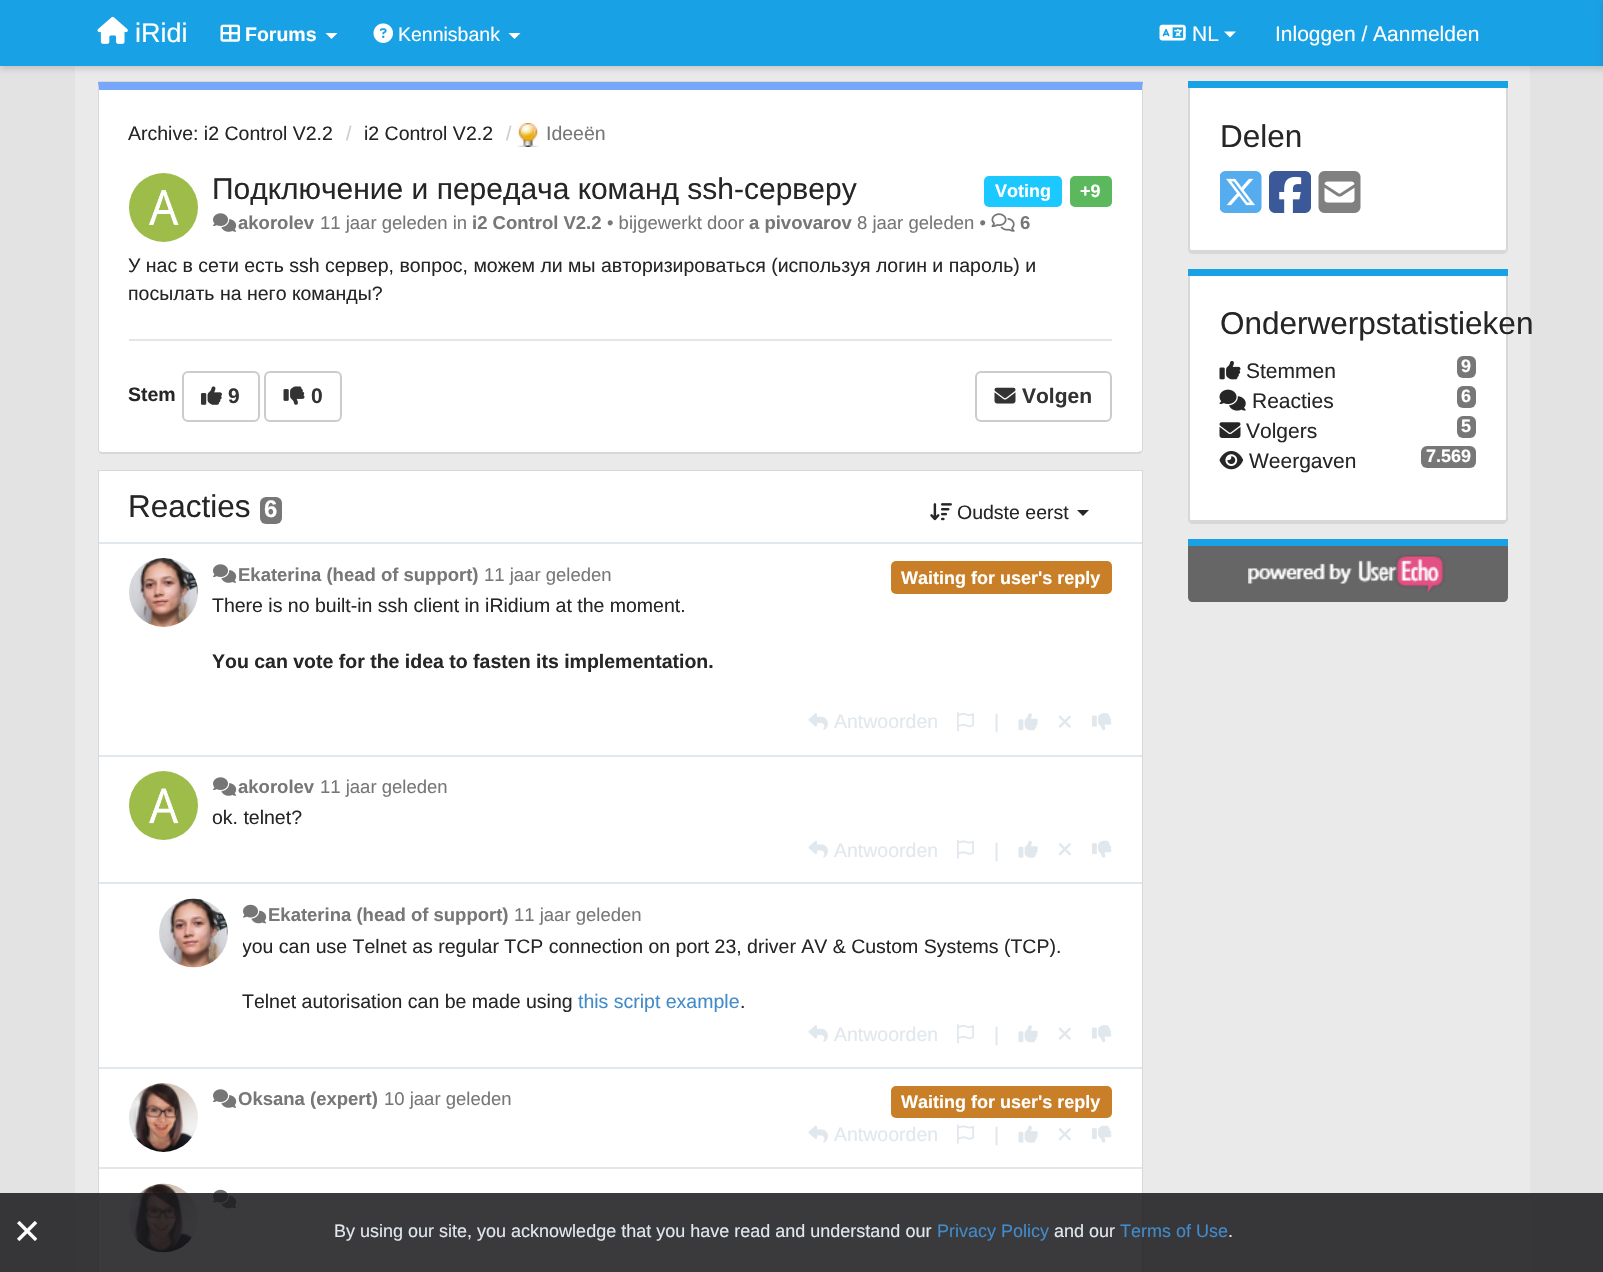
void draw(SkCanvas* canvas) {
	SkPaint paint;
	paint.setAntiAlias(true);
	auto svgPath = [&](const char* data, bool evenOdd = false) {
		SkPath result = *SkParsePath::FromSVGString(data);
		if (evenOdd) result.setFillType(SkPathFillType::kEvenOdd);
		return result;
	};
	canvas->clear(0xffe3e3e3);
	paint.setColor(0xffeaeaea);
	canvas->drawRect(SkRect::MakeXYWH(75, 66, 1455, 1206), paint);
	paint.setColor(0x26000000);
	paint.setMaskFilter(SkMaskFilter::MakeBlur(kNormal_SkBlurStyle, 3));
	canvas->drawRect(SkRect::MakeXYWH(0, 3, 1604, 66), paint);
	paint.setMaskFilter(nullptr);
	paint.setColor(0xff19a1e5);
	canvas->drawRect(SkRect::MakeXYWH(0, 0, 1603, 66), paint);
	canvas->drawImageRect(SkImages::DeferredFromEncodedData(SkData::MakeFromFileName("img1.png")), SkRect::MakeXYWH(97, 16, 31, 28), SkSamplingOptions());
	SkFont f1(fontMgr->matchFamilyStyle("Liberation Sans", SkFontStyle::Normal()), 27);
	f1.setSubpixel(true);
	paint.setColor(0xffffffff);
	canvas->drawString("iRidi", 135, 42, f1, paint);
	canvas->drawImageRect(SkImages::DeferredFromEncodedData(SkData::MakeFromFileName("img2.png")), SkRect::MakeXYWH(220, 24, 20, 18), SkSamplingOptions());
	SkFont f2(fontMgr->matchFamilyStyle("Liberation Sans", SkFontStyle::Bold()), 19.5);
	f2.setSubpixel(true);
	canvas->drawString("Forums", 245, 41, f2, paint);
	canvas->drawPath(svgPath("M325.5 33H337.5L331.5 39Z"), paint);
	canvas->drawImageRect(SkImages::DeferredFromEncodedData(SkData::MakeFromFileName("img3.png")), SkRect::MakeXYWH(373, 23, 20, 20), SkSamplingOptions());
	SkFont f3(fontMgr->matchFamilyStyle("Liberation Sans", SkFontStyle::Normal()), 19.5);
	f3.setSubpixel(true);
	canvas->drawString("Kennisbank", 398, 41, f3, paint);
	canvas->drawPath(svgPath("M508.5 33H520.5L514.5 39Z"), paint);
	canvas->drawImageRect(SkImages::DeferredFromEncodedData(SkData::MakeFromFileName("img4.png")), SkRect::MakeXYWH(1159, 24, 27, 17), SkSamplingOptions());
	SkFont f4(fontMgr->matchFamilyStyle("Liberation Sans", SkFontStyle::Normal()), 21);
	f4.setSubpixel(true);
	canvas->drawString("NL", 1192, 41, f4, paint);
	canvas->drawPath(svgPath("M1224 31.5H1236L1230 37.5Z"), paint);
	canvas->drawString("Inloggen / Aanmelden", 1275, 41, f4, paint);
	paint.setColor(0x26000000);
	paint.setMaskFilter(SkMaskFilter::MakeBlur(kNormal_SkBlurStyle, 3));
	canvas->drawRect(SkRect::MakeXYWH(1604, 3, 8, 66), paint);
	paint.setMaskFilter(nullptr);
	paint.setColor(0xffd8d8d8);
	canvas->drawRect(SkRect::MakeXYWH(98, 81, 1045, 2), paint);
	paint.setColor(0xffffffff);
	canvas->drawPath(svgPath("M99 90H1142V450C1142 451 1140 452 1138 452H102C100 452 99 451 99 450Z"), paint);
	paint.setColor(0xff76a7fa);
	canvas->drawPath(svgPath("M99 90L98 82H1143L1142 90Z"), paint);
	paint.setColor(0xffd8d8d8);
	canvas->drawPath(svgPath("M1143 82L1142 90V450L1141 451L1142 452L1143 450Z"), paint);
	canvas->drawPath(svgPath("M1142 452C1141 453 1140 454 1138 454H102C101 454 99 453 99 452V451L102 452H1138L1141 451Z"), paint);
	canvas->drawPath(svgPath("M99 90V451V452L98 450V85Z"), paint);
	paint.setColor(0xff262626);
	canvas->drawString("Archive: i2 Control V2.2", 128, 140, f3, paint);
	paint.setColor(0xffcccccc);
	canvas->drawString("/", 346, 140, f3, paint);
	paint.setColor(0xff262626);
	canvas->drawString("i2 Control V2.2", 364, 140, f3, paint);
	paint.setColor(0xffcccccc);
	canvas->drawString("/", 506, 140, f3, paint);
	canvas->drawImageRect(SkImages::DeferredFromEncodedData(SkData::MakeFromFileName("img5.png")), SkRect::MakeXYWH(517, 123, 22, 24), SkSamplingOptions());
	paint.setColor(0xff777777);
	canvas->drawString("Ideeën", 546, 140, f3, paint);
	paint.setColor(0xff9dbc4a);
	canvas->drawCircle(163.5, 207.5, 34.5, paint);
	canvas->drawImageRect(SkImages::DeferredFromEncodedData(SkData::MakeFromFileName("img6.png")), SkRect::MakeXYWH(149, 190, 30, 35), SkSamplingOptions());
	SkFont f5(fontMgr->matchFamilyStyle("Liberation Sans", SkFontStyle::Normal()), 30);
	f5.setSubpixel(true);
	paint.setColor(0xff262626);
	canvas->drawString("Подключение и передача команд ssh-серверу", 212, 199, f5, paint);
	paint.setColor(0xff1bc8ff);
	canvas->drawRoundRect(SkRect::MakeXYWH(984, 176, 78, 31), 5, 5, paint);
	SkFont f6(fontMgr->matchFamilyStyle("Liberation Sans", SkFontStyle::Bold()), 18);
	f6.setSubpixel(true);
	paint.setColor(0xffffffff);
	canvas->drawString("Voting", 995, 197, f6, paint);
	paint.setColor(0xff5cb85c);
	canvas->drawRoundRect(SkRect::MakeXYWH(1070, 176, 42, 31), 5, 5, paint);
	paint.setColor(0xffffffff);
	canvas->drawString("+9", 1080, 197, f6, paint);
	canvas->drawImageRect(SkImages::DeferredFromEncodedData(SkData::MakeFromFileName("img7.png")), SkRect::MakeXYWH(213, 213, 24, 19), SkSamplingOptions());
	SkFont f7(fontMgr->matchFamilyStyle("Liberation Sans", SkFontStyle::Bold()), 18.5);
	f7.setSubpixel(true);
	paint.setColor(0xff777777);
	canvas->drawString("akorolev", 238, 229, f7, paint);
	SkFont f8(fontMgr->matchFamilyStyle("Liberation Sans", SkFontStyle::Normal()), 18.5);
	f8.setSubpixel(true);
	canvas->drawString("11 jaar geleden in", 320, 229, f8, paint);
	canvas->drawString("i2 Control V2.2", 472, 229, f7, paint);
	canvas->drawString("• bijgewerkt door", 607, 229, f8, paint);
	canvas->drawString("a pivovarov", 749, 229, f7, paint);
	canvas->drawString("8 jaar geleden •", 857, 229, f8, paint);
	canvas->drawImageRect(SkImages::DeferredFromEncodedData(SkData::MakeFromFileName("img8.png")), SkRect::MakeXYWH(991, 213, 24, 19), SkSamplingOptions());
	canvas->drawString("6", 1020, 229, f7, paint);
	paint.setColor(0xff262626);
	canvas->drawString("У нас в сети есть ssh сервер, вопрос, можем ли мы авторизироваться (используя логин и пароль) и", 128, 272, f3, paint);
	canvas->drawString("посылать на него команды?", 128, 300, f3, paint);
	paint.setColor(0xffe5e5e5);
	canvas->drawRect(SkRect::MakeXYWH(129, 339, 983, 2), paint);
	paint.setColor(0xff262626);
	canvas->drawString("Stem", 128, 401, f2, paint);
	paint.setStroke(true);
	paint.setStrokeWidth(2);
	paint.setColor(0xffcccccc);
	canvas->drawRoundRect(SkRect::MakeXYWH(183, 372, 76, 49), 5, 5, paint);
	canvas->drawImageRect(SkImages::DeferredFromEncodedData(SkData::MakeFromFileName("img9.png")), SkRect::MakeXYWH(201, 386, 21, 19), SkSamplingOptions());
	SkFont f9(fontMgr->matchFamilyStyle("Liberation Sans", SkFontStyle::Bold()), 21);
	f9.setSubpixel(true);
	paint.setStroke(false);
	paint.setColor(0xff333333);
	canvas->drawString("9", 228, 403, f9, paint);
	paint.setStroke(true);
	paint.setColor(0xffcccccc);
	canvas->drawRoundRect(SkRect::MakeXYWH(265, 372, 76, 49), 5, 5, paint);
	canvas->drawImageRect(SkImages::DeferredFromEncodedData(SkData::MakeFromFileName("img10.png")), SkRect::MakeXYWH(283, 386, 22, 19), SkSamplingOptions());
	paint.setStroke(false);
	paint.setColor(0xff333333);
	canvas->drawString("0", 311, 403, f9, paint);
	paint.setStroke(true);
	paint.setColor(0xffcccccc);
	canvas->drawRoundRect(SkRect::MakeXYWH(976, 372, 135, 49), 5, 5, paint);
	canvas->drawImageRect(SkImages::DeferredFromEncodedData(SkData::MakeFromFileName("img11.png")), SkRect::MakeXYWH(994, 387, 22, 17), SkSamplingOptions());
	paint.setStroke(false);
	paint.setColor(0xff333333);
	canvas->drawString("Volgen", 1022, 403, f9, paint);
	paint.setColor(0xffd8d8d8);
	canvas->drawRect(SkRect::MakeXYWH(98, 470, 1045, 1), paint);
	paint.setColor(0xffffffff);
	canvas->drawRect(SkRect::MakeXYWH(99, 471, 1043, 801), paint);
	paint.setColor(0xffd8d8d8);
	canvas->drawPath(svgPath("M98 471H1143V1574C1143 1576 1141 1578 1138 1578H102C100 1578 98 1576 98 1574ZM99 471H1142V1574C1142 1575 1140 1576 1138 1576H102C100 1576 99 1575 99 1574Z", true), paint);
	SkFont f10(fontMgr->matchFamilyStyle("Liberation Sans", SkFontStyle::Normal()), 31.5);
	f10.setSubpixel(true);
	paint.setColor(0xff262626);
	canvas->drawString("Reacties", 128, 517, f10, paint);
	paint.setColor(0xff777777);
	canvas->drawRoundRect(SkRect::MakeXYWH(260, 497, 22, 27), 6, 6, paint);
	SkFont f11(fontMgr->matchFamilyStyle("Liberation Sans", SkFontStyle::Bold()), 24);
	f11.setSubpixel(true);
	paint.setColor(0xffffffff);
	canvas->drawString("6", 264, 517, f11, paint);
	canvas->drawImageRect(SkImages::DeferredFromEncodedData(SkData::MakeFromFileName("img12.png")), SkRect::MakeXYWH(930, 503, 22, 18), SkSamplingOptions());
	paint.setColor(0xff262626);
	canvas->drawString("Oudste eerst", 957, 519, f3, paint);
	canvas->drawPath(svgPath("M1077 510H1089L1083 516Z"), paint);
	paint.setColor(0xffe1e8ed);
	canvas->drawRect(SkRect::MakeXYWH(99, 542, 1043, 2), paint);
	canvas->drawRect(SkRect::MakeXYWH(99, 755, 1043, 2), paint);
	canvas->drawImageRect(SkImages::DeferredFromEncodedData(SkData::MakeFromFileName("img13.png")), SkRect::MakeXYWH(129, 558, 69, 69), SkSamplingOptions());
	canvas->drawImageRect(SkImages::DeferredFromEncodedData(SkData::MakeFromFileName("img7.png")), SkRect::MakeXYWH(213, 564, 24, 19), SkSamplingOptions());
	paint.setColor(0xff777777);
	canvas->drawString("Ekaterina (head of support)", 238, 581, f7, paint);
	canvas->drawString("11 jaar geleden", 484, 581, f8, paint);
	paint.setColor(0xffc97f27);
	canvas->drawRoundRect(SkRect::MakeXYWH(891, 561, 221, 33), 5, 5, paint);
	paint.setColor(0xffffffff);
	canvas->drawString("Waiting for user's reply", 901, 584, f6, paint);
	paint.setColor(0xff262626);
	canvas->drawString("There is no built-in ssh client in iRidium at the moment.", 212, 612, f3, paint);
	canvas->drawString("You can vote for the idea to fasten its implementation.", 212, 668, f2, paint);
	canvas->drawImageRect(SkImages::DeferredFromEncodedData(SkData::MakeFromFileName("img14.png")), SkRect::MakeXYWH(808, 713, 20, 17), SkSamplingOptions());
	paint.setColor(0xffe1e8ed);
	canvas->drawString("Antwoorden", 834, 728, f3, paint);
	canvas->drawImageRect(SkImages::DeferredFromEncodedData(SkData::MakeFromFileName("img15.png")), SkRect::MakeXYWH(957, 712, 17, 20), SkSamplingOptions());
	canvas->drawString("|", 994, 728, f3, paint);
	canvas->drawImageRect(SkImages::DeferredFromEncodedData(SkData::MakeFromFileName("img16.png")), SkRect::MakeXYWH(1018, 713, 20, 18), SkSamplingOptions());
	canvas->drawImageRect(SkImages::DeferredFromEncodedData(SkData::MakeFromFileName("img17.png")), SkRect::MakeXYWH(1058, 715, 13, 13), SkSamplingOptions());
	canvas->drawImageRect(SkImages::DeferredFromEncodedData(SkData::MakeFromFileName("img18.png")), SkRect::MakeXYWH(1092, 713, 20, 18), SkSamplingOptions());
	canvas->drawRect(SkRect::MakeXYWH(99, 882, 1043, 2), paint);
	paint.setColor(0xff9dbc4a);
	canvas->drawCircle(163.5, 805.5, 34.5, paint);
	canvas->drawImageRect(SkImages::DeferredFromEncodedData(SkData::MakeFromFileName("img19.png")), SkRect::MakeXYWH(149, 788, 30, 36), SkSamplingOptions());
	canvas->drawImageRect(SkImages::DeferredFromEncodedData(SkData::MakeFromFileName("img7.png")), SkRect::MakeXYWH(213, 777, 24, 19), SkSamplingOptions());
	paint.setColor(0xff777777);
	canvas->drawString("akorolev", 238, 793, f7, paint);
	canvas->drawString("11 jaar geleden", 320, 793, f8, paint);
	paint.setColor(0xff262626);
	canvas->drawString("ok. telnet?", 212, 824, f3, paint);
	canvas->drawImageRect(SkImages::DeferredFromEncodedData(SkData::MakeFromFileName("img20.png")), SkRect::MakeXYWH(808, 840, 20, 18), SkSamplingOptions());
	paint.setColor(0xffe1e8ed);
	canvas->drawString("Antwoorden", 834, 857, f3, paint);
	canvas->drawImageRect(SkImages::DeferredFromEncodedData(SkData::MakeFromFileName("img21.png")), SkRect::MakeXYWH(957, 839, 17, 20), SkSamplingOptions());
	canvas->drawString("|", 994, 857, f3, paint);
	canvas->drawImageRect(SkImages::DeferredFromEncodedData(SkData::MakeFromFileName("img22.png")), SkRect::MakeXYWH(1018, 840, 20, 18), SkSamplingOptions());
	canvas->drawImageRect(SkImages::DeferredFromEncodedData(SkData::MakeFromFileName("img23.png")), SkRect::MakeXYWH(1058, 843, 13, 13), SkSamplingOptions());
	canvas->drawImageRect(SkImages::DeferredFromEncodedData(SkData::MakeFromFileName("img24.png")), SkRect::MakeXYWH(1092, 840, 20, 18), SkSamplingOptions());
	canvas->drawRect(SkRect::MakeXYWH(99, 1067, 1043, 2), paint);
	canvas->drawImageRect(SkImages::DeferredFromEncodedData(SkData::MakeFromFileName("img25.png")), SkRect::MakeXYWH(159, 898, 69, 70), SkSamplingOptions());
	canvas->drawImageRect(SkImages::DeferredFromEncodedData(SkData::MakeFromFileName("img26.png")), SkRect::MakeXYWH(243, 904, 24, 20), SkSamplingOptions());
	paint.setColor(0xff777777);
	canvas->drawString("Ekaterina (head of support)", 268, 921, f7, paint);
	canvas->drawString("11 jaar geleden", 514, 921, f8, paint);
	canvas->save();
	canvas->clipRect(SkRect::MakeXYWH(243, 933, 869, 84));
	paint.setColor(0xff262626);
	canvas->drawString("you can use Telnet as regular TCP connection on port 23, driver AV & Custom Systems (TCP).", 242, 953, f3, paint);
	canvas->restore();
	canvas->drawString("Telnet autorisation can be made using", 242, 1008, f3, paint);
	paint.setColor(0xff428bca);
	canvas->drawString("this script example", 578, 1008, f3, paint);
	paint.setColor(0xff262626);
	canvas->drawString(".", 740, 1008, f3, paint);
	canvas->drawImageRect(SkImages::DeferredFromEncodedData(SkData::MakeFromFileName("img14.png")), SkRect::MakeXYWH(808, 1025, 20, 17), SkSamplingOptions());
	paint.setColor(0xffe1e8ed);
	canvas->drawString("Antwoorden", 834, 1041, f3, paint);
	canvas->drawImageRect(SkImages::DeferredFromEncodedData(SkData::MakeFromFileName("img15.png")), SkRect::MakeXYWH(957, 1024, 17, 20), SkSamplingOptions());
	canvas->drawString("|", 994, 1041, f3, paint);
	canvas->drawImageRect(SkImages::DeferredFromEncodedData(SkData::MakeFromFileName("img16.png")), SkRect::MakeXYWH(1018, 1025, 20, 18), SkSamplingOptions());
	canvas->drawImageRect(SkImages::DeferredFromEncodedData(SkData::MakeFromFileName("img17.png")), SkRect::MakeXYWH(1058, 1027, 13, 13), SkSamplingOptions());
	canvas->drawImageRect(SkImages::DeferredFromEncodedData(SkData::MakeFromFileName("img18.png")), SkRect::MakeXYWH(1092, 1025, 20, 18), SkSamplingOptions());
	canvas->drawRect(SkRect::MakeXYWH(99, 1167, 1043, 2), paint);
	canvas->drawImageRect(SkImages::DeferredFromEncodedData(SkData::MakeFromFileName("img27.png")), SkRect::MakeXYWH(129, 1083, 69, 69), SkSamplingOptions());
	canvas->drawImageRect(SkImages::DeferredFromEncodedData(SkData::MakeFromFileName("img7.png")), SkRect::MakeXYWH(213, 1089, 24, 19), SkSamplingOptions());
	paint.setColor(0xff777777);
	canvas->drawString("Oksana (expert)", 238, 1105, f7, paint);
	canvas->drawString("10 jaar geleden", 384, 1105, f8, paint);
	paint.setColor(0xffc97f27);
	canvas->drawRoundRect(SkRect::MakeXYWH(891, 1086, 221, 32), 5, 5, paint);
	paint.setColor(0xffffffff);
	canvas->drawString("Waiting for user's reply", 901, 1108, f6, paint);
	canvas->drawImageRect(SkImages::DeferredFromEncodedData(SkData::MakeFromFileName("img20.png")), SkRect::MakeXYWH(808, 1125, 20, 18), SkSamplingOptions());
	paint.setColor(0xffe1e8ed);
	canvas->drawString("Antwoorden", 834, 1141, f3, paint);
	canvas->drawImageRect(SkImages::DeferredFromEncodedData(SkData::MakeFromFileName("img21.png")), SkRect::MakeXYWH(957, 1124, 17, 20), SkSamplingOptions());
	canvas->drawString("|", 994, 1141, f3, paint);
	canvas->drawImageRect(SkImages::DeferredFromEncodedData(SkData::MakeFromFileName("img22.png")), SkRect::MakeXYWH(1018, 1125, 20, 18), SkSamplingOptions());
	canvas->drawImageRect(SkImages::DeferredFromEncodedData(SkData::MakeFromFileName("img23.png")), SkRect::MakeXYWH(1058, 1128, 13, 13), SkSamplingOptions());
	canvas->drawImageRect(SkImages::DeferredFromEncodedData(SkData::MakeFromFileName("img24.png")), SkRect::MakeXYWH(1092, 1125, 20, 18), SkSamplingOptions());
	canvas->drawImageRect(SkImages::DeferredFromEncodedData(SkData::MakeFromFileName("img28.png")), SkRect::MakeXYWH(129, 1183, 69, 70), SkSamplingOptions());
	canvas->drawImageRect(SkImages::DeferredFromEncodedData(SkData::MakeFromFileName("img26.png")), SkRect::MakeXYWH(213, 1189, 24, 20), SkSamplingOptions());
	paint.setColor(0xff19a1e5);
	canvas->drawRect(SkRect::MakeXYWH(1188, 81, 320, 7), paint);
	paint.setColor(0xffffffff);
	canvas->drawPath(svgPath("M1190 88H1506V249C1506 250 1505 250 1503 250H1192C1191 250 1190 250 1190 249Z"), paint);
	paint.setColor(0xffd8d8d8);
	canvas->drawPath(svgPath("M1188 88H1508V249C1508 251 1505 254 1503 254H1192C1190 254 1188 251 1188 249ZM1190 88H1506V249C1506 250 1505 250 1503 250H1192C1191 250 1190 250 1190 249Z", true), paint);
	paint.setColor(0xff262626);
	canvas->drawString("Delen", 1220, 147, f10, paint);
	canvas->drawImageRect(SkImages::DeferredFromEncodedData(SkData::MakeFromFileName("img29.png")), SkRect::MakeXYWH(1220, 171, 42, 42), SkSamplingOptions());
	canvas->drawImageRect(SkImages::DeferredFromEncodedData(SkData::MakeFromFileName("img30.png")), SkRect::MakeXYWH(1269, 171, 42, 42), SkSamplingOptions());
	canvas->drawImageRect(SkImages::DeferredFromEncodedData(SkData::MakeFromFileName("img31.png")), SkRect::MakeXYWH(1318, 171, 43, 42), SkSamplingOptions());
	paint.setColor(0xff19a1e5);
	canvas->drawRect(SkRect::MakeXYWH(1188, 269, 320, 7), paint);
	paint.setColor(0xffffffff);
	canvas->drawPath(svgPath("M1190 276H1506V519C1506 520 1505 520 1503 520H1192C1191 520 1190 520 1190 519Z"), paint);
	paint.setColor(0xffd8d8d8);
	canvas->drawPath(svgPath("M1188 276H1508V519C1508 521 1505 524 1503 524H1192C1190 524 1188 521 1188 519ZM1190 276H1506V519C1506 520 1505 520 1503 520H1192C1191 520 1190 520 1190 519Z", true), paint);
	paint.setColor(0xff262626);
	canvas->drawString("Onderwerpstatistieken", 1220, 334, f10, paint);
	canvas->drawImageRect(SkImages::DeferredFromEncodedData(SkData::MakeFromFileName("img32.png")), SkRect::MakeXYWH(1219, 361, 22, 19), SkSamplingOptions());
	canvas->drawString("Stemmen", 1246, 378, f4, paint);
	paint.setColor(0xff777777);
	canvas->drawRoundRect(SkRect::MakeXYWH(1457, 356, 19, 22), 6, 6, paint);
	paint.setColor(0xffffffff);
	canvas->drawString("9", 1461, 372, f6, paint);
	canvas->drawImageRect(SkImages::DeferredFromEncodedData(SkData::MakeFromFileName("img33.png")), SkRect::MakeXYWH(1219, 389, 27, 22), SkSamplingOptions());
	paint.setColor(0xff262626);
	canvas->drawString("Reacties", 1252, 408, f4, paint);
	paint.setColor(0xff777777);
	canvas->drawRoundRect(SkRect::MakeXYWH(1457, 386, 19, 22), 6, 6, paint);
	paint.setColor(0xffffffff);
	canvas->drawString("6", 1461, 402, f6, paint);
	canvas->drawImageRect(SkImages::DeferredFromEncodedData(SkData::MakeFromFileName("img34.png")), SkRect::MakeXYWH(1219, 422, 22, 16), SkSamplingOptions());
	paint.setColor(0xff262626);
	canvas->drawString("Volgers", 1246, 438, f4, paint);
	paint.setColor(0xff777777);
	canvas->drawRoundRect(SkRect::MakeXYWH(1457, 416, 19, 22), 6, 6, paint);
	paint.setColor(0xffffffff);
	canvas->drawString("5", 1461, 432, f6, paint);
	canvas->drawImageRect(SkImages::DeferredFromEncodedData(SkData::MakeFromFileName("img35.png")), SkRect::MakeXYWH(1219, 450, 25, 20), SkSamplingOptions());
	paint.setColor(0xff262626);
	canvas->drawString("Weergaven", 1249, 468, f4, paint);
	paint.setColor(0xff777777);
	canvas->drawRoundRect(SkRect::MakeXYWH(1421, 446, 55, 22), 6, 6, paint);
	paint.setColor(0xffffffff);
	canvas->drawString("7.569", 1426, 462, f6, paint);
	paint.setColor(0xff19a1e5);
	canvas->drawRect(SkRect::MakeXYWH(1188, 539, 320, 7), paint);
	paint.setColor(0xff666666);
	canvas->drawPath(svgPath("M1188 546H1508V597C1508 600 1506 602 1503 602H1193C1190 602 1188 600 1188 597Z"), paint);
	canvas->drawImageRect(SkImages::DeferredFromEncodedData(SkData::MakeFromFileName("img36.png")), SkRect::MakeXYWH(1248, 555, 197, 38), SkSamplingOptions());
	paint.setColor(0xd917181b);
	canvas->drawRect(SkRect::MakeXYWH(0, 1193, 1603, 79), paint);
	SkFont f12(fontMgr->matchFamilyStyle("Liberation Sans", SkFontStyle::Normal()), 45);
	f12.setSubpixel(true);
	paint.setColor(0xffffffff);
	canvas->drawString("×", 14, 1246, f12, paint);
	SkFont f13(fontMgr->matchFamilyStyle("Liberation Sans", SkFontStyle::Normal()), 18);
	f13.setSubpixel(true);
	paint.setColor(0xffe1e8ed);
	canvas->drawString("By using our site, you acknowledge that you have read and understand our", 334, 1237, f13, paint);
	paint.setColor(0xff428bca);
	canvas->drawString("Privacy Policy", 937, 1237, f13, paint);
	paint.setColor(0xffe1e8ed);
	canvas->drawString("and our", 1054, 1237, f13, paint);
	paint.setColor(0xff428bca);
	canvas->drawString("Terms of Use", 1120, 1237, f13, paint);
	paint.setColor(0xffe1e8ed);
	canvas->drawString(".", 1228, 1237, f13, paint);
}
